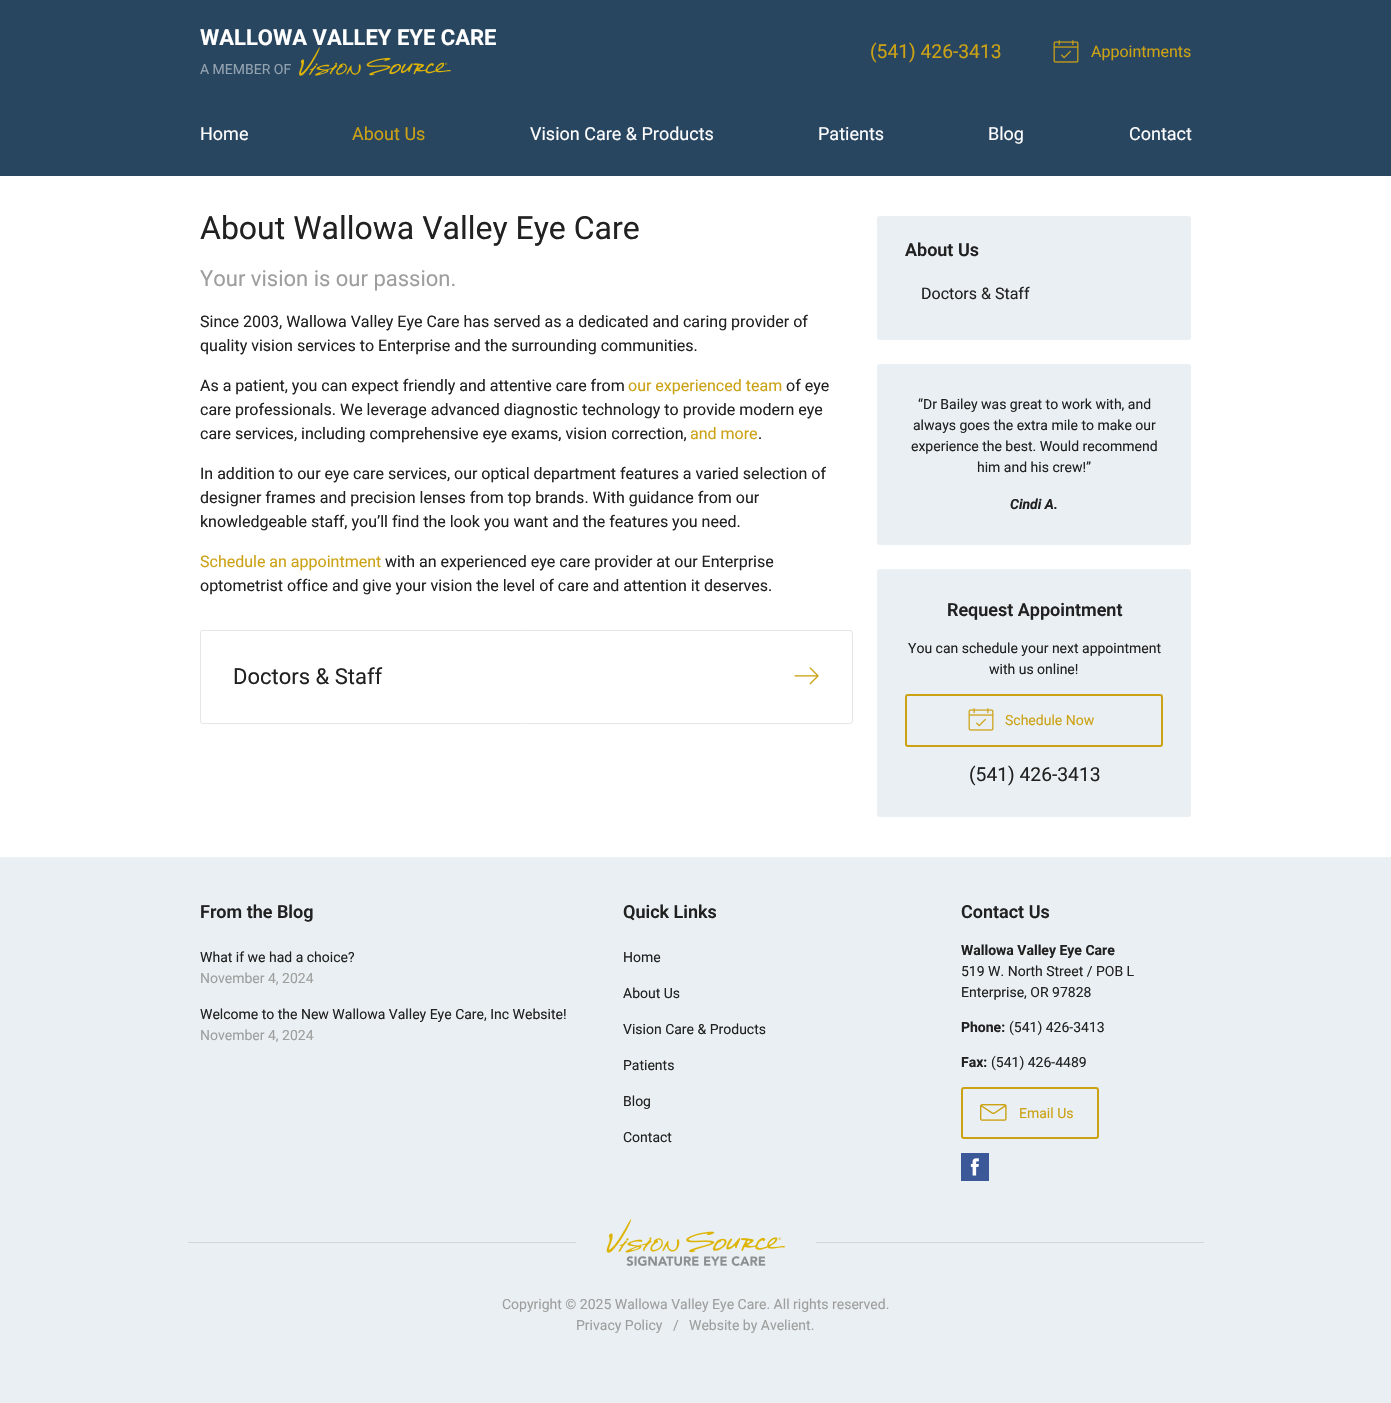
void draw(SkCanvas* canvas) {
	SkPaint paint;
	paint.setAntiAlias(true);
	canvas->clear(0xffe9eff2);
	paint.setColor(0xff294661);
	canvas->drawRect(SkRect::MakeXYWH(0, 0, 1391, 176), paint);
	SkFont f1(fontMgr->matchFamilyStyle("Roboto", SkFontStyle::Bold()), 22);
	f1.setSubpixel(true);
	paint.setColor(0xffffffff);
	canvas->drawString("WALLOWA VALLEY EYE CARE", 200, 45, f1, paint);
	SkFont f2(fontMgr->matchFamilyStyle("Roboto", SkFontStyle::Normal()), 14);
	f2.setSubpixel(true);
	paint.setColor(0xff94a3b0);
	canvas->drawString("A MEMBER OF", 200, 74, f2, paint);
	canvas->drawImageRect(SkImages::DeferredFromEncodedData(SkData::MakeFromFileName("img1.png")), SkRect::MakeXYWH(299, 47, 152, 29), SkSamplingOptions());
	SkFont f3(fontMgr->matchFamilyStyle("Roboto", SkFontStyle::Normal()), 19.25);
	f3.setSubpixel(true);
	paint.setColor(0xffcca215);
	canvas->drawString("(541) 426-3413", 870, 58, f3, paint);
	canvas->drawImageRect(SkImages::DeferredFromEncodedData(SkData::MakeFromFileName("img2.png")), SkRect::MakeXYWH(1053, 40, 26, 23), SkSamplingOptions());
	SkFont f4(fontMgr->matchFamilyStyle("Roboto", SkFontStyle::Normal()), 16);
	f4.setSubpixel(true);
	canvas->drawString("Appointments", 1091, 57, f4, paint);
	SkFont f5(fontMgr->matchFamilyStyle("Roboto", SkFontStyle::Normal()), 18);
	f5.setSubpixel(true);
	paint.setColor(0xffffffff);
	canvas->drawString("Home", 200, 140, f5, paint);
	paint.setColor(0xffcca215);
	canvas->drawString("About Us", 352, 140, f5, paint);
	paint.setColor(0xffffffff);
	canvas->drawString("Vision Care & Products", 530, 140, f5, paint);
	canvas->drawString("Patients", 818, 140, f5, paint);
	canvas->drawString("Blog", 988, 140, f5, paint);
	canvas->drawString("Contact", 1129, 140, f5, paint);
	canvas->drawRect(SkRect::MakeXYWH(0, 176, 1391, 681), paint);
	SkFont f6(fontMgr->matchFamilyStyle("Roboto", SkFontStyle::Normal()), 32);
	f6.setSubpixel(true);
	paint.setColor(0xff212121);
	canvas->drawString("About Wallowa Valley Eye Care", 200, 239, f6, paint);
	SkFont f7(fontMgr->matchFamilyStyle("Roboto", SkFontStyle::Normal()), 22);
	f7.setSubpixel(true);
	paint.setColor(0xff9e9e9e);
	canvas->drawString("Your vision is our passion.", 200, 286, f7, paint);
	paint.setColor(0xff212121);
	canvas->drawString("Since 2003, Wallowa Valley Eye Care has served as a dedicated and caring provider of", 200, 327, f4, paint);
	canvas->drawString("quality vision services to Enterprise and the surrounding communities.", 200, 351, f4, paint);
	canvas->drawString("As a patient, you can expect friendly and attentive care from", 200, 391, f4, paint);
	paint.setColor(0xffcca215);
	canvas->drawString("our experienced team", 628, 391, f4, paint);
	paint.setColor(0xff212121);
	canvas->drawString("of eye", 786, 391, f4, paint);
	canvas->drawString("care professionals. We leverage advanced diagnostic technology to provide modern eye", 200, 415, f4, paint);
	canvas->drawString("care services, including comprehensive eye exams, vision correction,", 200, 439, f4, paint);
	paint.setColor(0xffcca215);
	canvas->drawString("and more", 690, 439, f4, paint);
	paint.setColor(0xff212121);
	canvas->drawString(".", 758, 439, f4, paint);
	canvas->drawString("In addition to our eye care services, our optical department features a varied selection of", 200, 479, f4, paint);
	canvas->drawString("designer frames and precision lenses from top brands. With guidance from our", 200, 503, f4, paint);
	canvas->drawString("knowledgeable staff, you’ll find the look you want and the features you need.", 200, 527, f4, paint);
	paint.setColor(0xffcca215);
	canvas->drawString("Schedule an appointment", 200, 567, f4, paint);
	paint.setColor(0xff212121);
	canvas->drawString("with an experienced eye care provider at our Enterprise", 385, 567, f4, paint);
	canvas->drawString("optometrist office and give your vision the level of care and attention it deserves.", 200, 591, f4, paint);
	paint.setStroke(true);
	paint.setStrokeWidth(1);
	paint.setColor(0xffe6e6e6);
	canvas->drawRoundRect(SkRect::MakeXYWH(200.5, 630.5, 652, 93), 2.5, 2.5, paint);
	paint.setStroke(false);
	paint.setColor(0xff212121);
	canvas->drawString("Doctors & Staff", 233, 684, f7, paint);
	canvas->drawImageRect(SkImages::DeferredFromEncodedData(SkData::MakeFromFileName("img3.png")), SkRect::MakeXYWH(794, 667, 25, 18), SkSamplingOptions());
	paint.setColor(0xffe9eff2);
	canvas->drawRoundRect(SkRect::MakeXYWH(877, 216, 314, 124), 3, 3, paint);
	SkFont f8(fontMgr->matchFamilyStyle("Roboto", SkFontStyle(600, SkFontStyle::kNormal_Width, SkFontStyle::kUpright_Slant)), 18);
	f8.setSubpixel(true);
	paint.setColor(0xff212121);
	canvas->drawString("About Us", 905, 256, f8, paint);
	canvas->drawString("Doctors & Staff", 921, 299, f4, paint);
	paint.setColor(0xffe9eff2);
	canvas->drawRoundRect(SkRect::MakeXYWH(877, 364, 314, 181), 3, 3, paint);
	paint.setColor(0xff212121);
	canvas->drawString("“Dr Bailey was great to work with, and", 918, 409, f2, paint);
	canvas->drawString("always goes the extra mile to make our", 913, 430, f2, paint);
	canvas->drawString("experience the best. Would recommend", 911, 451, f2, paint);
	canvas->drawString("him and his crew!”", 977, 472, f2, paint);
	SkFont f9(fontMgr->matchFamilyStyle("Roboto", SkFontStyle::BoldItalic()), 14);
	f9.setSubpixel(true);
	canvas->drawString("Cindi A.", 1010, 509, f9, paint);
	paint.setColor(0xffe9eff2);
	canvas->drawRoundRect(SkRect::MakeXYWH(877, 569, 314, 248), 3, 3, paint);
	paint.setColor(0xff212121);
	canvas->drawString("Request Appointment", 947, 616, f8, paint);
	canvas->drawString("You can schedule your next appointment", 908, 653, f2, paint);
	canvas->drawString("with us online!", 989, 674, f2, paint);
	paint.setStroke(true);
	paint.setStrokeWidth(2);
	paint.setColor(0xffcca215);
	canvas->drawRoundRect(SkRect::MakeXYWH(906, 695, 256, 51), 2, 2, paint);
	canvas->drawImageRect(SkImages::DeferredFromEncodedData(SkData::MakeFromFileName("img4.png")), SkRect::MakeXYWH(968, 708, 26, 23), SkSamplingOptions());
	paint.setStroke(false);
	canvas->drawString("Schedule Now", 1005, 725, f2, paint);
	paint.setColor(0xff212121);
	canvas->drawString("(541) 426-3413", 969, 781, f3, paint);
	canvas->drawString("From the Blog", 200, 918, f8, paint);
	canvas->drawString("What if we had a choice?", 200, 962, f2, paint);
	paint.setColor(0xff9e9e9e);
	canvas->drawString("November 4, 2024", 200, 983, f2, paint);
	paint.setColor(0xff212121);
	canvas->drawString("Welcome to the New Wallowa Valley Eye Care, Inc Website!", 200, 1019, f2, paint);
	paint.setColor(0xff9e9e9e);
	canvas->drawString("November 4, 2024", 200, 1040, f2, paint);
	paint.setColor(0xff212121);
	canvas->drawString("Quick Links", 623, 918, f8, paint);
	canvas->drawString("Home", 623, 962, f2, paint);
	canvas->drawString("About Us", 623, 998, f2, paint);
	canvas->drawString("Vision Care & Products", 623, 1034, f2, paint);
	canvas->drawString("Patients", 623, 1070, f2, paint);
	canvas->drawString("Blog", 623, 1106, f2, paint);
	canvas->drawString("Contact", 623, 1142, f2, paint);
	canvas->drawString("Contact Us", 961, 918, f8, paint);
	SkFont f10(fontMgr->matchFamilyStyle("Roboto", SkFontStyle::Bold()), 14);
	f10.setSubpixel(true);
	canvas->drawString("Wallowa Valley Eye Care", 961, 955, f10, paint);
	canvas->drawString("519 W. North Street / POB L", 961, 976, f2, paint);
	canvas->drawString("Enterprise, OR 97828", 961, 997, f2, paint);
	canvas->drawString("Phone:", 961, 1032, f10, paint);
	canvas->drawString("(541) 426-3413", 1009, 1032, f2, paint);
	canvas->drawString("Fax:", 961, 1067, f10, paint);
	canvas->drawString("(541) 426-4489", 991, 1067, f2, paint);
	paint.setStroke(true);
	paint.setColor(0xffcca215);
	canvas->drawRoundRect(SkRect::MakeXYWH(962, 1088, 136, 50), 2, 2, paint);
	canvas->drawImageRect(SkImages::DeferredFromEncodedData(SkData::MakeFromFileName("img5.png")), SkRect::MakeXYWH(980, 1104, 27, 17), SkSamplingOptions());
	paint.setStroke(false);
	canvas->drawString("Email Us", 1019, 1118, f2, paint);
	paint.setColor(0xffffffff);
	canvas->drawRect(SkRect::MakeXYWH(970, 1158, 9, 18), paint);
	canvas->drawImageRect(SkImages::DeferredFromEncodedData(SkData::MakeFromFileName("img6.png")), SkRect::MakeXYWH(961, 1153, 28, 28), SkSamplingOptions());
	paint.setColor(0xffd2d7da);
	canvas->drawRect(SkRect::MakeXYWH(188, 1242, 1016, 1), paint);
	paint.setColor(0xffe9eff2);
	canvas->drawRect(SkRect::MakeXYWH(576, 1242, 240, 1), paint);
	canvas->drawImageRect(SkImages::DeferredFromEncodedData(SkData::MakeFromFileName("img7.png")), SkRect::MakeXYWH(606, 1219, 180, 47), SkSamplingOptions());
	paint.setColor(0xff9e9e9e);
	canvas->drawString("Copyright © 2025 Wallowa Valley Eye Care. All rights reserved.", 502, 1309, f2, paint);
	canvas->drawString("Privacy Policy", 576, 1330, f2, paint);
	canvas->drawString("/", 673, 1330, f2, paint);
	canvas->drawString("Website by Avelient.", 689, 1330, f2, paint);
}
